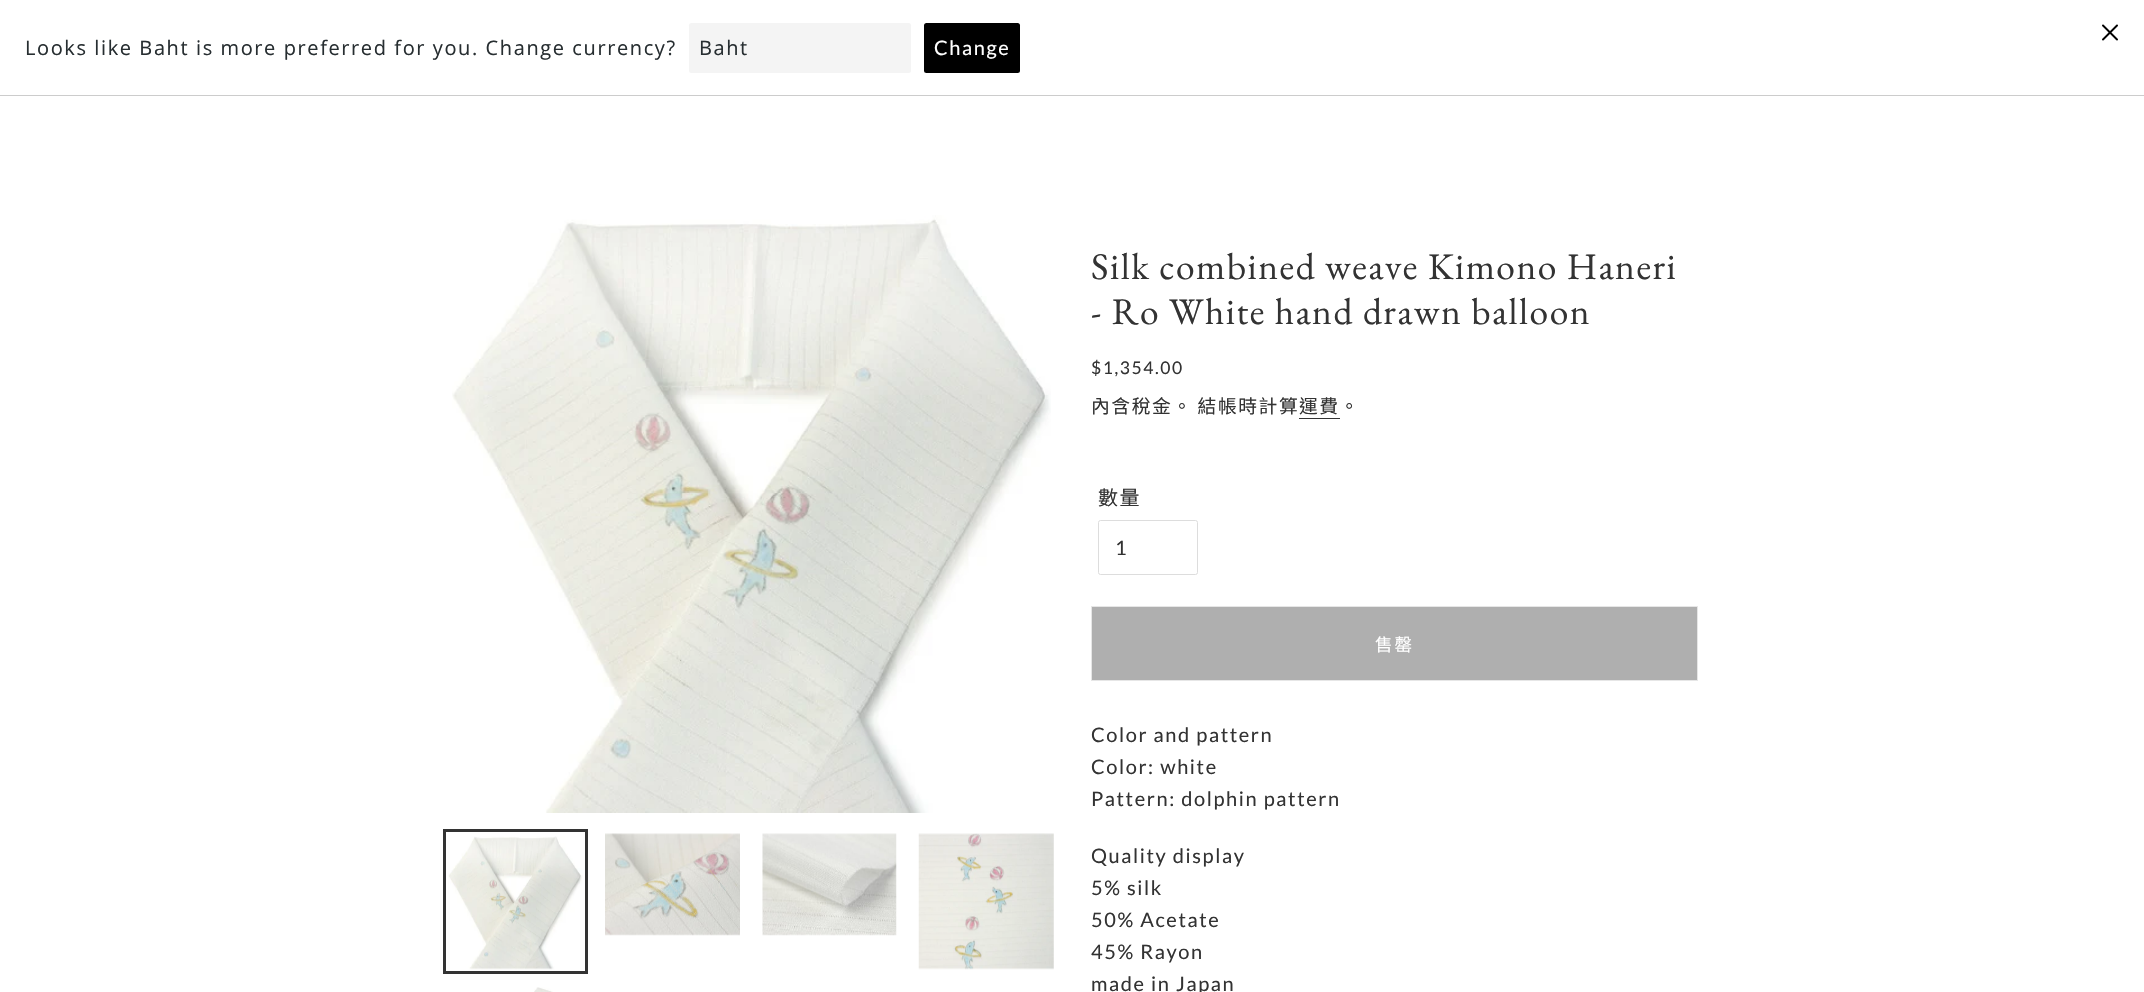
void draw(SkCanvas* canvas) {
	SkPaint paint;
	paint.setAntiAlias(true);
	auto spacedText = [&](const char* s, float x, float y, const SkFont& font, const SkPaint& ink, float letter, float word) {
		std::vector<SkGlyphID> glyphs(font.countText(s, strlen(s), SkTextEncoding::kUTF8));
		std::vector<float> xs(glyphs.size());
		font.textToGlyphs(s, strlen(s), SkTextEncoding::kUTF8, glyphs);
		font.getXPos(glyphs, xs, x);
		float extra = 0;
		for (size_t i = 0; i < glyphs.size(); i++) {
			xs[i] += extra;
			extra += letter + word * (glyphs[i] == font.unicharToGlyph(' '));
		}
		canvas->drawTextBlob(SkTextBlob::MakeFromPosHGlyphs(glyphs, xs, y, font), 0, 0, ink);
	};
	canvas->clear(0xffffffff);
	paint.setColor(0xffcccccc);
	canvas->drawRect(SkRect::MakeXYWH(0, 95, 2144, 1), paint);
	canvas->drawImageRect(SkImages::DeferredFromEncodedData(SkData::MakeFromFileName("img1.png")), SkRect::MakeXYWH(2102, 24, 16, 17), SkSamplingOptions());
	SkFont f1(fontMgr->matchFamilyStyle("Open Sans", SkFontStyle::Normal()), 20);
	f1.setSubpixel(true);
	paint.setColor(0xff272e31);
	spacedText("Looks like Baht is more preferred for you. Change currency?", 25, 55, f1, paint, 1.6, 0);
	paint.setColor(0xfff4f4f4);
	canvas->drawRoundRect(SkRect::MakeXYWH(689, 23, 222, 50), 2.5, 2.5, paint);
	paint.setColor(0xff272e31);
	spacedText("Baht", 699, 55, f1, paint, 1.6, 0);
	paint.setColor(0xff000000);
	canvas->drawRoundRect(SkRect::MakeXYWH(924, 23, 96, 50), 2.5, 2.5, paint);
	SkFont f2(fontMgr->matchFamilyStyle("Lato", SkFontStyle::Normal()), 20);
	f2.setSubpixel(true);
	paint.setColor(0xffffffff);
	spacedText("Change", 934, 55, f2, paint, 1.6, 0);
	canvas->drawImageRect(SkImages::DeferredFromEncodedData(SkData::MakeFromFileName("img2.png")), SkRect::MakeXYWH(452, 215, 599, 598), SkSamplingOptions());
	paint.setStroke(true);
	paint.setStrokeWidth(3);
	paint.setColor(0xff333333);
	canvas->drawRect(SkRect::MakeXYWH(444.5, 830.5, 142, 142), paint);
	canvas->drawImageRect(SkImages::DeferredFromEncodedData(SkData::MakeFromFileName("img3.png")), SkRect::MakeXYWH(448, 836, 135, 134), SkSamplingOptions());
	canvas->drawImageRect(SkImages::DeferredFromEncodedData(SkData::MakeFromFileName("img4.png")), SkRect::MakeXYWH(605, 833, 135, 103), SkSamplingOptions());
	canvas->drawImageRect(SkImages::DeferredFromEncodedData(SkData::MakeFromFileName("img5.png")), SkRect::MakeXYWH(762, 833, 135, 103), SkSamplingOptions());
	canvas->drawImageRect(SkImages::DeferredFromEncodedData(SkData::MakeFromFileName("img6.png")), SkRect::MakeXYWH(918, 833, 136, 137), SkSamplingOptions());
	canvas->drawImageRect(SkImages::DeferredFromEncodedData(SkData::MakeFromFileName("img7.png")), SkRect::MakeXYWH(534, 987, 19, 5), SkSamplingOptions());
	SkFont f3(fontMgr->matchFamilyStyle("EB Garamond", SkFontStyle::Normal()), 37.5);
	f3.setSubpixel(true);
	paint.setStroke(false);
	spacedText("Silk combined weave Kimono Haneri", 1091, 279, f3, paint, 1.5, 0);
	spacedText("- Ro White hand drawn balloon", 1091, 324, f3, paint, 1.5, 0);
	SkFont f4(fontMgr->matchFamilyStyle("Lato", SkFontStyle::Normal()), 17.5);
	f4.setSubpixel(true);
	spacedText("$1,354.00", 1091, 374, f4, paint, 1.6, 0);
	SkFont f5(fontMgr->matchFamilyStyle("Noto Sans CJK TC", SkFontStyle::Normal()), 18.75);
	f5.setSubpixel(true);
	spacedText("內含稅金。 結帳時計算", 1091, 413, f5, paint, 1.6, -1);
	spacedText("運費。", 1299, 413, f5, paint, 1.6, 0);
	canvas->drawRect(SkRect::MakeXYWH(1299, 418, 41, 1), paint);
	SkFont f6(fontMgr->matchFamilyStyle("Noto Sans CJK TC", SkFontStyle::Normal()), 20);
	f6.setSubpixel(true);
	spacedText("數量", 1098, 505, f6, paint, 1.6, 0);
	paint.setStroke(true);
	paint.setStrokeWidth(1);
	paint.setColor(0xffdddddd);
	canvas->drawRoundRect(SkRect::MakeXYWH(1098.5, 520.5, 99, 54), 2, 2, paint);
	paint.setStroke(false);
	paint.setColor(0xff333333);
	spacedText("1", 1115, 555, f2, paint, 1.6, 0);
	paint.setColor(0xffafafaf);
	canvas->drawRect(SkRect::MakeXYWH(1091.5, 606.5, 606, 74), paint);
	paint.setStroke(true);
	paint.setColor(0xffe6e6e6);
	canvas->drawRect(SkRect::MakeXYWH(1091.5, 606.5, 606, 74), paint);
	SkFont f7(fontMgr->matchFamilyStyle("Noto Sans CJK TC", SkFontStyle::Normal()), 17.5);
	f7.setSubpixel(true);
	paint.setStroke(false);
	paint.setColor(0xffffffff);
	spacedText("售罄", 1375, 651, f7, paint, 2, 0);
	paint.setColor(0xff333333);
	spacedText("Color and pattern", 1091, 742, f2, paint, 1.6, 0);
	spacedText("Color: white", 1091, 774, f2, paint, 1.6, 0);
	spacedText("Pattern: dolphin pattern", 1091, 806, f2, paint, 1.6, 0);
	spacedText("Quality display", 1091, 863, f2, paint, 1.6, 0);
	spacedText("5% silk", 1091, 895, f2, paint, 1.6, 0);
	spacedText("50% Acetate", 1091, 927, f2, paint, 1.6, 0);
	spacedText("45% Rayon", 1091, 959, f2, paint, 1.6, 0);
	spacedText("made in Japan", 1091, 991, f2, paint, 1.6, 0);
}
